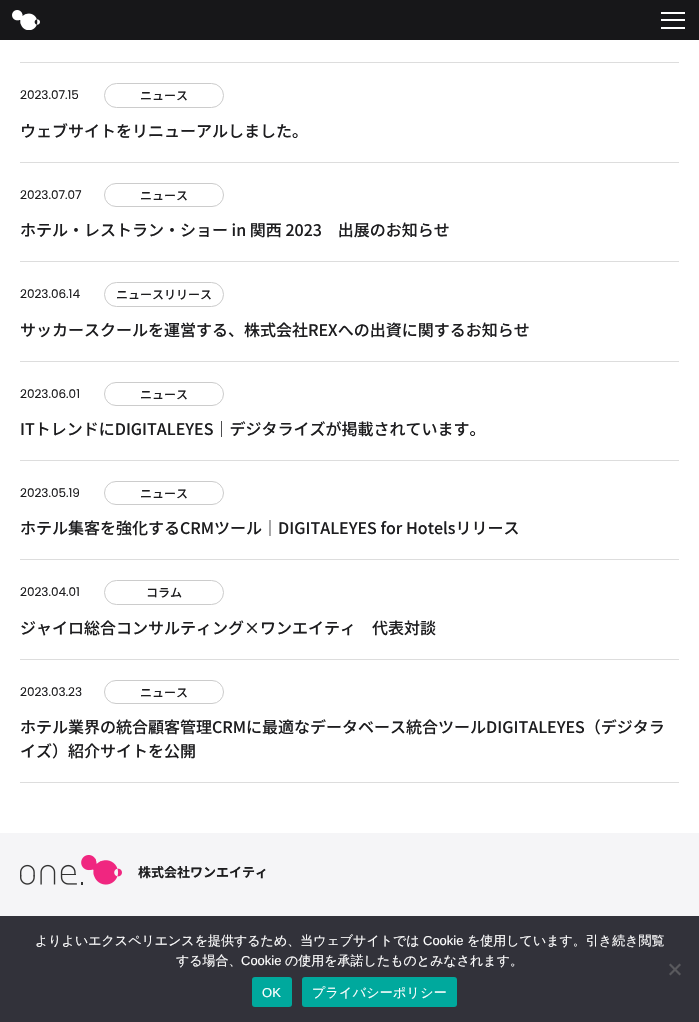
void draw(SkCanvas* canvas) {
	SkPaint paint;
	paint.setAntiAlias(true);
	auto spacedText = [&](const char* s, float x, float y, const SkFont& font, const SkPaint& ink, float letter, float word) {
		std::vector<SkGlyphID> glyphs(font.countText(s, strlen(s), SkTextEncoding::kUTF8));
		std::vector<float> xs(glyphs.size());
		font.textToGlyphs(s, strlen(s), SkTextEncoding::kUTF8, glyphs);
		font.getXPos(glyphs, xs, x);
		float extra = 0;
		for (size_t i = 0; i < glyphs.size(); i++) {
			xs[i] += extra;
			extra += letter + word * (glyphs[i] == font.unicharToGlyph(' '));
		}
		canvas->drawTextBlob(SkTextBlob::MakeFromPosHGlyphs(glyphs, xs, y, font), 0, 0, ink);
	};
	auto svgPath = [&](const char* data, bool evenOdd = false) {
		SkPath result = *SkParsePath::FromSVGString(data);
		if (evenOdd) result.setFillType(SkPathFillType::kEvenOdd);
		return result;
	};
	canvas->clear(0xffffffff);
	paint.setColor(0xff171719);
	canvas->drawRect(SkRect::MakeXYWH(0, 0, 699, 40), paint);
	canvas->drawImageRect(SkImages::DeferredFromEncodedData(SkData::MakeFromFileName("img1.png")), SkRect::MakeXYWH(12, 10, 28, 20), SkSamplingOptions());
	paint.setColor(0xffffffff);
	canvas->drawRect(SkRect::MakeXYWH(661, 12, 24, 2), paint);
	canvas->drawRect(SkRect::MakeXYWH(661, 19, 24, 2), paint);
	canvas->drawRect(SkRect::MakeXYWH(661, 27, 24, 2), paint);
	paint.setColor(0xffdddddd);
	canvas->drawRect(SkRect::MakeXYWH(20, 62, 659, 1), paint);
	canvas->drawRect(SkRect::MakeXYWH(20, 162, 659, 1), paint);
	SkFont f1(fontMgr->matchFamilyStyle("Poppins", SkFontStyle::Normal()), 12);
	f1.setSubpixel(true);
	paint.setColor(0xff1d1d1f);
	canvas->drawString("2023.07.15", 20, 99, f1, paint);
	paint.setStroke(true);
	paint.setStrokeWidth(1);
	paint.setColor(0xffcccccc);
	canvas->drawRoundRect(SkRect::MakeXYWH(104.5, 83.5, 119, 24), 12, 12, paint);
	SkFont f2(fontMgr->matchFamilyStyle("Noto Sans JP", SkFontStyle(500, SkFontStyle::kNormal_Width, SkFontStyle::kUpright_Slant)), 12);
	f2.setSubpixel(true);
	paint.setStroke(false);
	paint.setColor(0xff1d1d1f);
	canvas->drawString("ニュース", 140, 100, f2, paint);
	SkFont f3(fontMgr->matchFamilyStyle("Noto Sans JP", SkFontStyle(500, SkFontStyle::kNormal_Width, SkFontStyle::kUpright_Slant)), 16);
	f3.setSubpixel(true);
	canvas->drawString("ウェブサイトをリニューアルしました。", 20, 137, f3, paint);
	paint.setColor(0xffdddddd);
	canvas->drawRect(SkRect::MakeXYWH(20, 261, 659, 1), paint);
	paint.setColor(0xff1d1d1f);
	canvas->drawString("2023.07.07", 20, 199, f1, paint);
	paint.setStroke(true);
	paint.setColor(0xffcccccc);
	canvas->drawRoundRect(SkRect::MakeXYWH(104.5, 183.5, 119, 23), 11.5, 11.5, paint);
	paint.setStroke(false);
	paint.setColor(0xff1d1d1f);
	canvas->drawString("ニュース", 140, 200, f2, paint);
	canvas->drawString("ホテル・レストラン・ショー in 関西 2023　出展のお知らせ", 20, 236, f3, paint);
	paint.setColor(0xffdddddd);
	canvas->drawRect(SkRect::MakeXYWH(20, 361, 659, 1), paint);
	paint.setColor(0xff1d1d1f);
	canvas->drawString("2023.06.14", 20, 298, f1, paint);
	paint.setStroke(true);
	paint.setColor(0xffcccccc);
	canvas->drawRoundRect(SkRect::MakeXYWH(104.5, 282.5, 119, 24), 12, 12, paint);
	paint.setStroke(false);
	paint.setColor(0xff1d1d1f);
	canvas->drawString("ニュースリリース", 116, 299, f2, paint);
	canvas->drawString("サッカースクールを運営する、株式会社REXへの出資に関するお知らせ", 20, 336, f3, paint);
	paint.setColor(0xffdddddd);
	canvas->drawRect(SkRect::MakeXYWH(20, 460, 659, 1), paint);
	paint.setColor(0xff1d1d1f);
	canvas->drawString("2023.06.01", 20, 398, f1, paint);
	paint.setStroke(true);
	paint.setColor(0xffcccccc);
	canvas->drawRoundRect(SkRect::MakeXYWH(104.5, 382.5, 119, 23), 11.5, 11.5, paint);
	paint.setStroke(false);
	paint.setColor(0xff1d1d1f);
	canvas->drawString("ニュース", 140, 399, f2, paint);
	canvas->drawString("ITトレンドにDIGITALEYES｜デジタライズが掲載されています。", 20, 435, f3, paint);
	paint.setColor(0xffdddddd);
	canvas->drawRect(SkRect::MakeXYWH(20, 559, 659, 1), paint);
	paint.setColor(0xff1d1d1f);
	canvas->drawString("2023.05.19", 20, 497, f1, paint);
	paint.setStroke(true);
	paint.setColor(0xffcccccc);
	canvas->drawRoundRect(SkRect::MakeXYWH(104.5, 481.5, 119, 23), 11.5, 11.5, paint);
	paint.setStroke(false);
	paint.setColor(0xff1d1d1f);
	canvas->drawString("ニュース", 140, 498, f2, paint);
	canvas->drawString("ホテル集客を強化するCRMツール│DIGITALEYES for Hotelsリリース", 20, 534, f3, paint);
	paint.setColor(0xffdddddd);
	canvas->drawRect(SkRect::MakeXYWH(20, 659, 659, 1), paint);
	paint.setColor(0xff1d1d1f);
	canvas->drawString("2023.04.01", 20, 596, f1, paint);
	paint.setStroke(true);
	paint.setColor(0xffcccccc);
	canvas->drawRoundRect(SkRect::MakeXYWH(104.5, 580.5, 119, 24), 12, 12, paint);
	paint.setStroke(false);
	paint.setColor(0xff1d1d1f);
	canvas->drawString("コラム", 146, 597, f2, paint);
	canvas->drawString("ジャイロ総合コンサルティング×ワンエイティ　代表対談", 20, 634, f3, paint);
	paint.setColor(0xffdddddd);
	canvas->drawRect(SkRect::MakeXYWH(20, 782, 659, 1), paint);
	paint.setColor(0xff1d1d1f);
	canvas->drawString("2023.03.23", 20, 696, f1, paint);
	paint.setStroke(true);
	paint.setColor(0xffcccccc);
	canvas->drawRoundRect(SkRect::MakeXYWH(104.5, 680.5, 119, 23), 11.5, 11.5, paint);
	paint.setStroke(false);
	paint.setColor(0xff1d1d1f);
	canvas->drawString("ニュース", 140, 697, f2, paint);
	canvas->drawString("ホテル業界の統合顧客管理CRMに最適なデータベース統合ツールDIGITALEYES（デジタラ", 20, 733, f3, paint);
	canvas->drawString("イズ）紹介サイトを公開", 20, 757, f3, paint);
	paint.setColor(0xfff5f5f7);
	canvas->drawRect(SkRect::MakeXYWH(0, 833, 699, 83), paint);
	canvas->drawImageRect(SkImages::DeferredFromEncodedData(SkData::MakeFromFileName("img2.png")), SkRect::MakeXYWH(20, 855, 102, 30), SkSamplingOptions());
	SkFont f4(fontMgr->matchFamilyStyle("Noto Sans JP", SkFontStyle::Bold()), 13);
	f4.setSubpixel(true);
	paint.setColor(0xff1d1d1f);
	canvas->drawString("株式会社ワンエイティ", 138, 877, f4, paint);
	paint.setColor(0xff32323a);
	canvas->drawRect(SkRect::MakeXYWH(0, 916, 699, 106), paint);
	SkFont f5(fontMgr->matchFamilyStyle("WenQuanYi Zen Hei", SkFontStyle(500, SkFontStyle::kNormal_Width, SkFontStyle::kUpright_Slant)), 13);
	f5.setSubpixel(true);
	paint.setColor(0xffffffff);
	canvas->drawString("よりよいエクスペリエンスを提供するため、当ウェブサイトでは", 35, 945, f5, paint);
	SkFont f6(fontMgr->matchFamilyStyle("Liberation Sans", SkFontStyle::Normal()), 13);
	f6.setSubpixel(true);
	canvas->drawString("Cookie", 423, 945, f6, paint);
	canvas->drawString("を使用しています。引き続き閲覧", 467, 945, f5, paint);
	canvas->drawString("する場合、", 176, 965, f5, paint);
	canvas->drawString("Cookie", 241, 965, f6, paint);
	canvas->drawString("の使用を承諾したものとみなされます。", 285, 965, f5, paint);
	paint.setColor(0xff59595d);
	canvas->drawPath(svgPath("M679.5 963.5L681 965L670.5 975.5L669 974Z"), paint);
	canvas->drawPath(svgPath("M669 965L670.5 963.5L681 974L679.5 975.5Z"), paint);
	paint.setColor(0xff00a99d);
	canvas->drawRoundRect(SkRect::MakeXYWH(252, 977, 40, 30), 3, 3, paint);
	paint.setColor(0xffffffff);
	spacedText("OK", 262, 997, f6, paint, 0.25, 0);
	paint.setColor(0xff00a99d);
	canvas->drawRoundRect(SkRect::MakeXYWH(302, 977, 155, 30), 3, 3, paint);
	paint.setColor(0xffffffff);
	spacedText("プライバシーポリシー", 312, 997, f5, paint, 0.25, 0);
}
